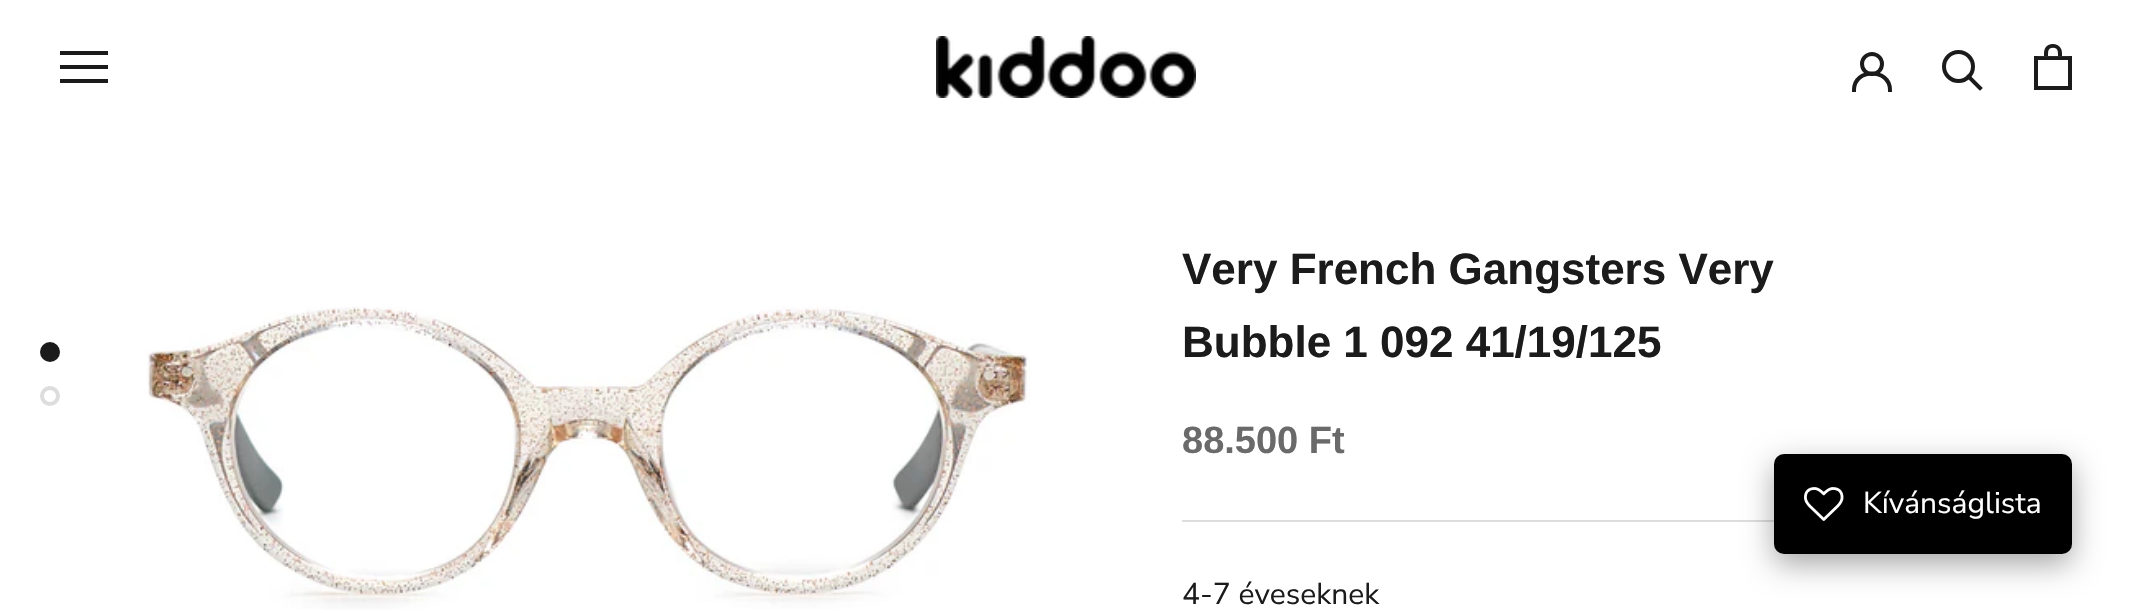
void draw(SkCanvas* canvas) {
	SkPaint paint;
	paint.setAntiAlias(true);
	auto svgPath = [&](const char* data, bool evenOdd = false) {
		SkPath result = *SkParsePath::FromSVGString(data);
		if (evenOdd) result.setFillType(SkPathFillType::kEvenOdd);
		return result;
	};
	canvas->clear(0xffffffff);
	paint.setColor(0xff1c1b1b);
	canvas->drawPath(svgPath("M60 83V79H108V83ZM60 65H108V69H60ZM60 51H108V55H60Z"), paint);
	canvas->drawImageRect(SkImages::DeferredFromEncodedData(SkData::MakeFromFileName("img1.png")), SkRect::MakeXYWH(936, 36, 260, 62), SkSamplingOptions());
	paint.setStroke(true);
	paint.setStrokeWidth(4);
	paint.setStrokeCap(SkPaint::kSquare_Cap);
	canvas->drawPath(svgPath("M1854 90C1854 68 1890 68 1890 90"), paint);
	paint.setStrokeCap(SkPaint::kButt_Cap);
	canvas->drawCircle(1872, 64, 10, paint);
	paint.setStrokeCap(SkPaint::kSquare_Cap);
	canvas->drawPath(svgPath("M1980 88L1968.5 76.5"), paint);
	paint.setStrokeCap(SkPaint::kButt_Cap);
	canvas->drawCircle(1958.5, 66.5, 14.5, paint);
	canvas->drawImageRect(SkImages::DeferredFromEncodedData(SkData::MakeFromFileName("img2.png")), SkRect::MakeXYWH(2034, 44, 38, 46), SkSamplingOptions());
	paint.setStroke(false);
	canvas->drawCircle(50, 352, 8, paint);
	paint.setStroke(true);
	canvas->drawCircle(50, 352, 8, paint);
	paint.setColor(0xffdddddd);
	canvas->drawCircle(50, 396, 8, paint);
	canvas->drawImageRect(SkImages::DeferredFromEncodedData(SkData::MakeFromFileName("img3.png")), SkRect::MakeXYWH(146, 306, 884, 304), SkSamplingOptions());
	paint.setStroke(false);
	canvas->drawRect(SkRect::MakeXYWH(1182, 520, 592, 2), paint);
	SkFont f1(fontMgr->matchFamilyStyle("Liberation Sans", SkFontStyle::Bold()), 44);
	f1.setSubpixel(true);
	paint.setColor(0xff1c1b1b);
	canvas->drawString("Very French Gangsters Very", 1182, 284, f1, paint);
	canvas->drawString("Bubble 1 092 41/19/125", 1182, 357, f1, paint);
	SkFont f2(fontMgr->matchFamilyStyle("Liberation Sans", SkFontStyle::Bold()), 38);
	f2.setSubpixel(true);
	paint.setColor(0xff6a6a6a);
	canvas->drawString("88.500 Ft", 1182, 453, f2, paint);
	SkFont f3(fontMgr->matchFamilyStyle("Nunito Sans", SkFontStyle::Normal()), 30);
	f3.setSubpixel(true);
	paint.setColor(0xff1c1b1b);
	canvas->drawString("4-7 éveseknek", 1182, 604, f3, paint);
	paint.setColor(0x59000000);
	paint.setMaskFilter(SkMaskFilter::MakeBlur(kNormal_SkBlurStyle, 15));
	canvas->drawRoundRect(SkRect::MakeXYWH(1774, 464, 298, 100), 10, 10, paint);
	paint.setMaskFilter(nullptr);
	paint.setColor(0xff000000);
	canvas->drawRoundRect(SkRect::MakeXYWH(1774, 454, 298, 100), 10, 10, paint);
	canvas->drawImageRect(SkImages::DeferredFromEncodedData(SkData::MakeFromFileName("img4.png")), SkRect::MakeXYWH(1804, 487, 40, 34), SkSamplingOptions());
	paint.setColor(0xffffffff);
	canvas->drawString("Kívánságlista", 1863, 513, f3, paint);
}
